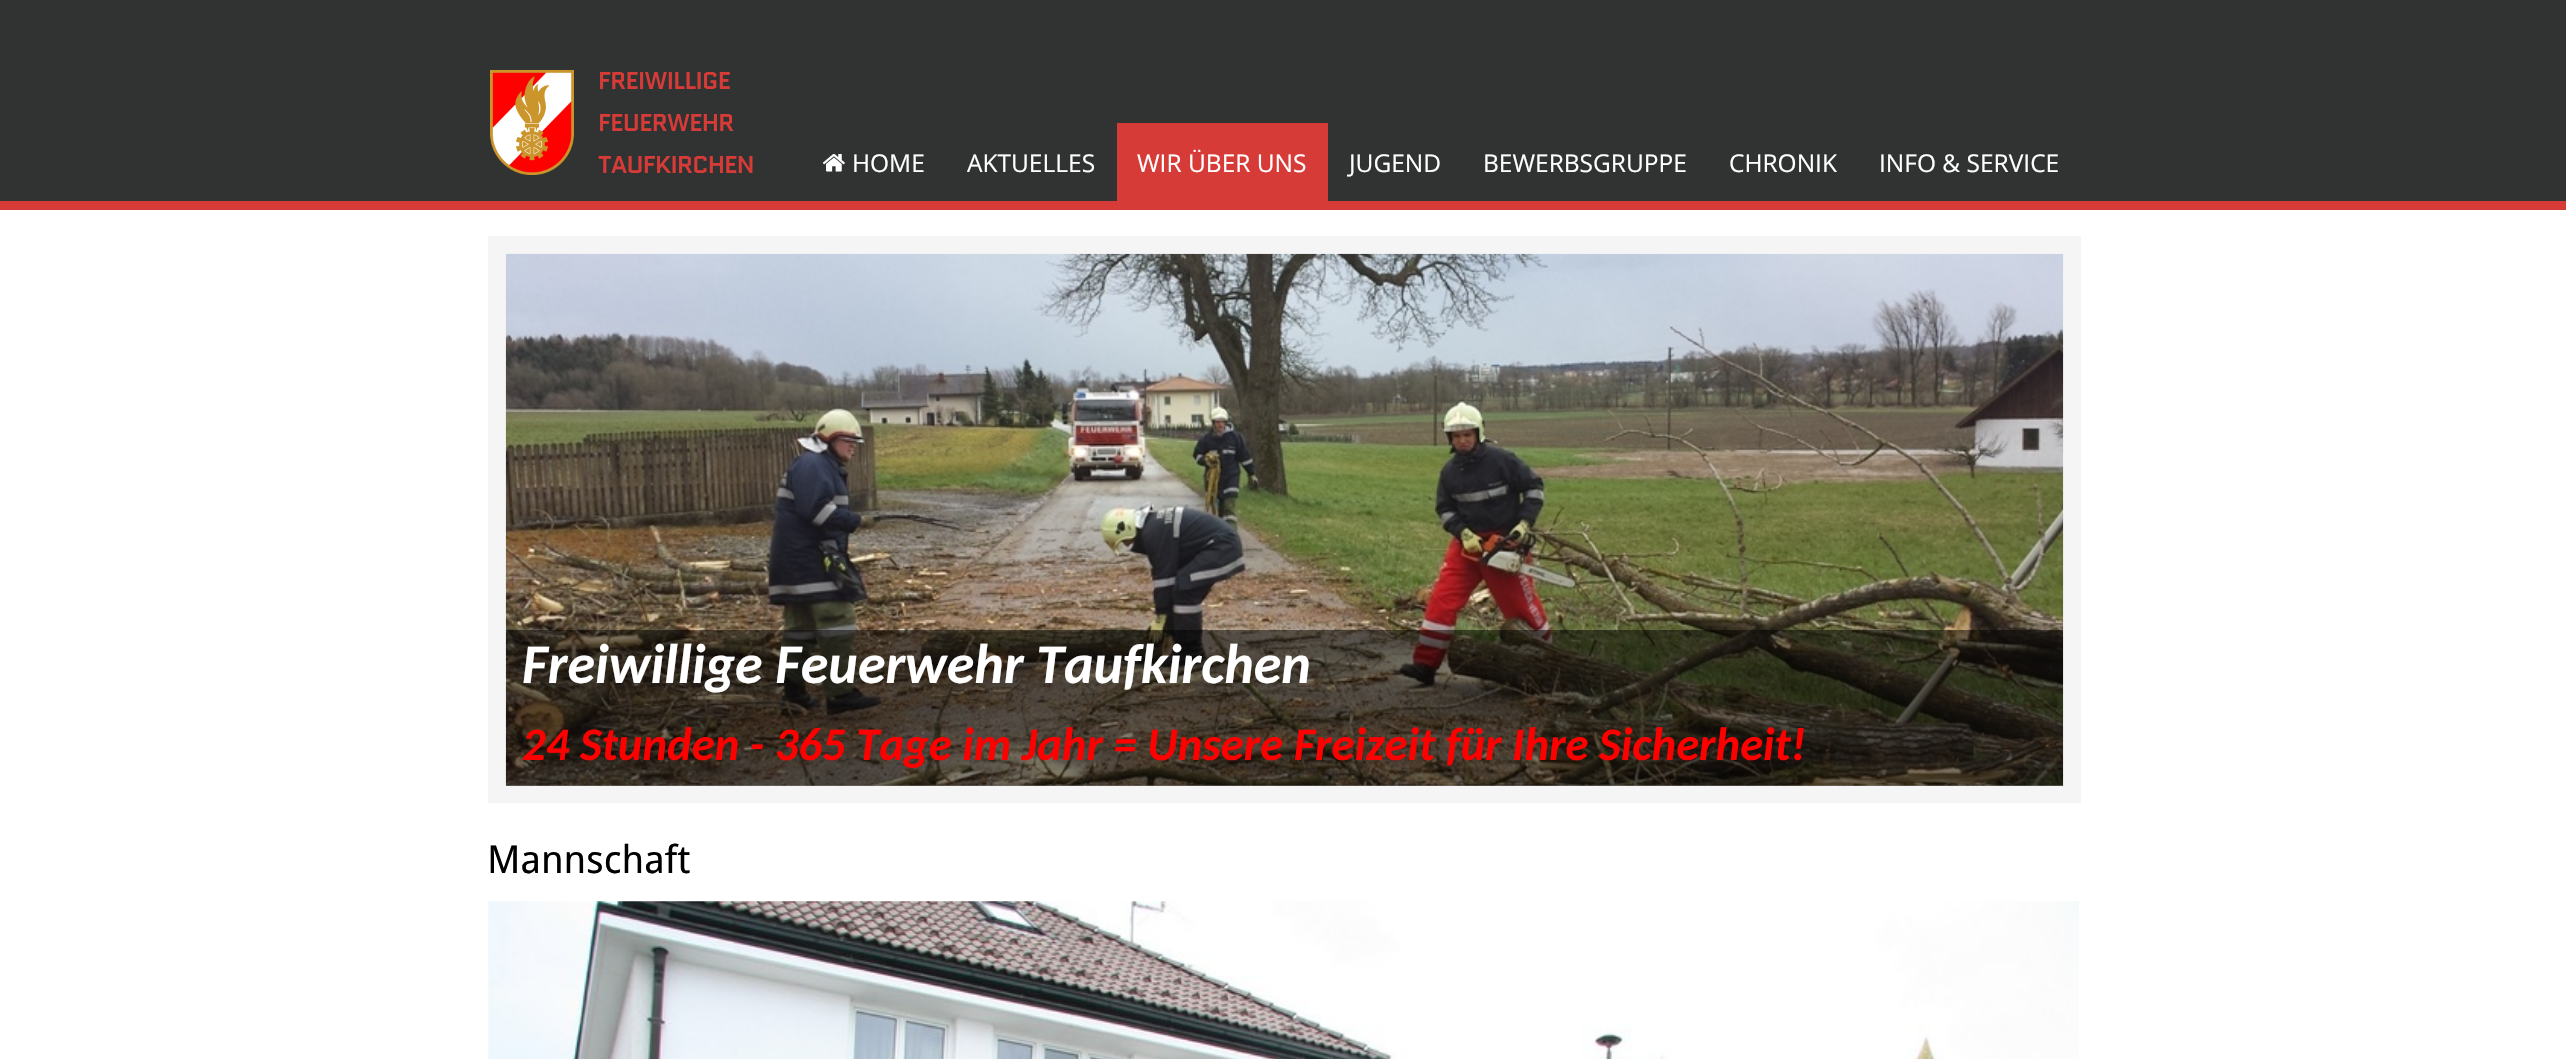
void draw(SkCanvas* canvas) {
	SkPaint paint;
	paint.setAntiAlias(true);
	canvas->clear(0xff313232);
	paint.setColor(0xffd63b37);
	canvas->drawRect(SkRect::MakeXYWH(0, 201, 2566, 9), paint);
	canvas->drawImageRect(SkImages::DeferredFromEncodedData(SkData::MakeFromFileName("img1.png")), SkRect::MakeXYWH(490, 70, 84, 105), SkSamplingOptions());
	SkFont f1(fontMgr->matchFamilyStyle("Quantico", SkFontStyle::Bold()), 23.25);
	f1.setSubpixel(true);
	canvas->drawString("FREIWILLIGE", 598, 89, f1, paint);
	canvas->drawString("FEUERWEHR", 598, 131, f1, paint);
	canvas->drawString("TAUFKIRCHEN", 598, 173, f1, paint);
	canvas->drawImageRect(SkImages::DeferredFromEncodedData(SkData::MakeFromFileName("img2.png")), SkRect::MakeXYWH(822, 154, 23, 18), SkSamplingOptions());
	SkFont f2(fontMgr->matchFamilyStyle("Open Sans", SkFontStyle::Normal()), 24.5);
	f2.setSubpixel(true);
	paint.setColor(0xffffffff);
	canvas->drawString("HOME", 852, 172, f2, paint);
	canvas->drawString("AKTUELLES", 967, 172, f2, paint);
	paint.setColor(0xffd63b37);
	canvas->drawRect(SkRect::MakeXYWH(1117, 123, 211, 78), paint);
	paint.setColor(0xffffffff);
	canvas->drawString("WIR ÜBER UNS", 1137, 172, f2, paint);
	canvas->drawString("JUGEND", 1349, 172, f2, paint);
	canvas->drawString("BEWERBSGRUPPE", 1483, 172, f2, paint);
	canvas->drawString("CHRONIK", 1729, 172, f2, paint);
	canvas->drawString("INFO & SERVICE", 1879, 172, f2, paint);
	canvas->drawRect(SkRect::MakeXYWH(0, 210, 2566, 849), paint);
	paint.setColor(0xfff5f5f5);
	canvas->drawRect(SkRect::MakeXYWH(488, 236, 1593, 567), paint);
	canvas->drawImageRect(SkImages::DeferredFromEncodedData(SkData::MakeFromFileName("img3.png")), SkRect::MakeXYWH(505, 253, 1559, 533), SkSamplingOptions());
	paint.setColor(0x80000000);
	canvas->drawRect(SkRect::MakeXYWH(506, 630, 1557, 156), paint);
	SkFont f3(fontMgr->matchFamilyStyle("Carlito", SkFontStyle::BoldItalic()), 56);
	f3.setSubpixel(true);
	paint.setColor(0xffffffff);
	canvas->drawString("Freiwillige Feuerwehr Taufkirchen", 522, 683, f3, paint);
	SkFont f4(fontMgr->matchFamilyStyle("Carlito", SkFontStyle::BoldItalic()), 46.7);
	f4.setSubpixel(true);
	paint.setColor(0xffff0000);
	canvas->drawString("24 Stunden - 365 Tage im Jahr = Unsere Freizeit für Ihre Sicherheit!", 522, 760, f4, paint);
	SkFont f5(fontMgr->matchFamilyStyle("Droid Sans", SkFontStyle::Normal()), 38.5);
	f5.setSubpixel(true);
	paint.setColor(0xff000000);
	canvas->drawString("Mannschaft", 487, 873, f5, paint);
	canvas->drawImageRect(SkImages::DeferredFromEncodedData(SkData::MakeFromFileName("img4.png")), SkRect::MakeXYWH(488, 901, 1591, 158), SkSamplingOptions());
}
